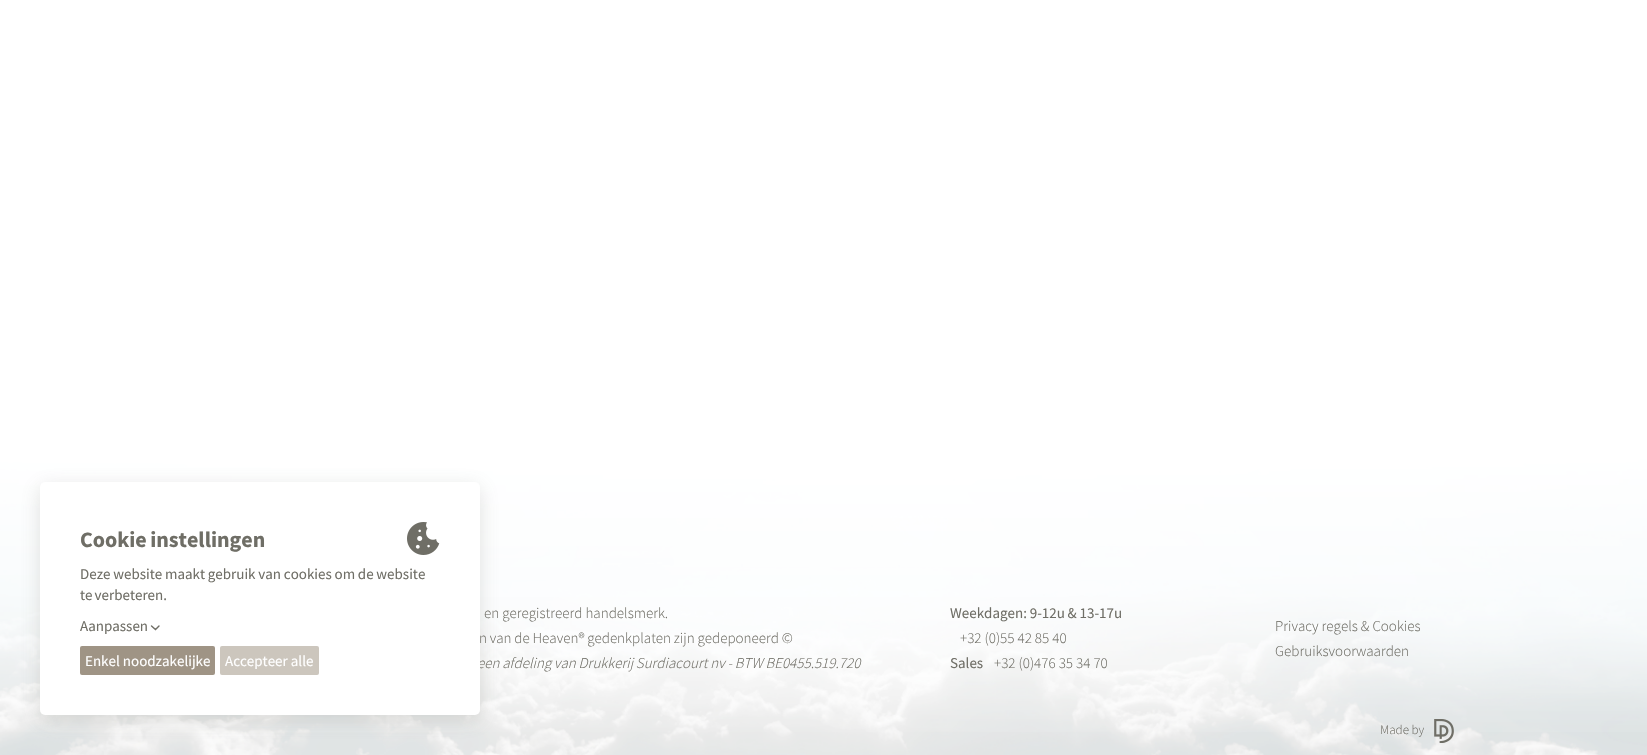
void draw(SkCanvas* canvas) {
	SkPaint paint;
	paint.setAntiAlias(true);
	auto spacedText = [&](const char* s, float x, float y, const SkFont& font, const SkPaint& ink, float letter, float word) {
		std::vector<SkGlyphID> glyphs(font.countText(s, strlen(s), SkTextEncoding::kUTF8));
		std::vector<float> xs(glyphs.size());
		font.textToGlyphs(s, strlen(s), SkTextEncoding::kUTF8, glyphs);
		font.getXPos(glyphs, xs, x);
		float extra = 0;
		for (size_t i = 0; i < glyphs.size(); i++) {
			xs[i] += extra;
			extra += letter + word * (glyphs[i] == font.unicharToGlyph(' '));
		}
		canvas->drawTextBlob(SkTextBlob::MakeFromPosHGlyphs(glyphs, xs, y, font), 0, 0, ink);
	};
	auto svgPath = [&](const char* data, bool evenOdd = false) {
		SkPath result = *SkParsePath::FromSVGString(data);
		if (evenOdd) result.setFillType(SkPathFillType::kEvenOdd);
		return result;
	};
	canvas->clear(0xffffffff);
	canvas->drawImageRect(SkImages::DeferredFromEncodedData(SkData::MakeFromFileName("img2.png")), SkRect::MakeXYWH(0, 442, 1647, 313), SkSamplingOptions());
	{
		const SkColor colors[] = {0x00ffffff, 0xffffffff};
		const float stops[] = {0, 1};
		const SkPoint ends[] = {{824, 755}, {824, 440}};
		paint.setShader(SkGradientShader::MakeLinear(ends, colors, stops, 2, SkTileMode::kClamp));
		paint.setAlpha(255);
	}
	canvas->drawRect(SkRect::MakeXYWH(0, 442, 1647, 290), paint);
	paint.setShader(nullptr);
	paint.setColor(0x336f6e66);
	paint.setMaskFilter(SkMaskFilter::MakeBlur(kNormal_SkBlurStyle, 10));
	canvas->drawRoundRect(SkRect::MakeXYWH(40, 487, 440, 233), 5, 5, paint);
	paint.setMaskFilter(nullptr);
	SkFont f1(fontMgr->matchFamilyStyle("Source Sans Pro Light", SkFontStyle(300, SkFontStyle::kNormal_Width, SkFontStyle::kItalic_Slant)), 15);
	f1.setSubpixel(true);
	paint.setColor(0xff6f6e66);
	spacedText("een afdeling van Drukkerij Surdiacourt nv - BTW BE0455.519.720", 477, 668, f1, paint, 0, -0.25);
	paint.setColor(0xffffffff);
	canvas->drawRoundRect(SkRect::MakeXYWH(40, 482, 440, 233), 5, 5, paint);
	SkFont f2(fontMgr->matchFamilyStyle("Source Sans Pro", SkFontStyle::Bold()), 22);
	f2.setSubpixel(true);
	paint.setColor(0xff6f6e66);
	spacedText("Cookie instellingen", 80, 547, f2, paint, 0, -1);
	canvas->drawImageRect(SkImages::DeferredFromEncodedData(SkData::MakeFromFileName("img1.png")), SkRect::MakeXYWH(407, 522, 33, 33), SkSamplingOptions());
	SkFont f3(fontMgr->matchFamilyStyle("Source Sans Pro", SkFontStyle::Normal()), 15);
	f3.setSubpixel(true);
	spacedText("Deze website maakt gebruik van cookies om de website", 80, 579, f3, paint, 0, -0.25);
	spacedText("te verbeteren.", 80, 600, f3, paint, 0, -1);
	canvas->drawString("Aanpassen", 80, 631, f3, paint);
	paint.setStroke(true);
	paint.setStrokeWidth(1.4);
	paint.setStrokeCap(SkPaint::kRound_Cap);
	canvas->drawPath(svgPath("M151.5 626L155.5 629.5L159 626"), paint);
	paint.setStroke(false);
	paint.setColor(0xff9f9485);
	canvas->drawRoundRect(SkRect::MakeXYWH(80, 646, 135, 29), 2, 2, paint);
	paint.setColor(0xffffffff);
	canvas->drawString("Enkel noodzakelijke", 85, 666, f3, paint);
	paint.setColor(0xffccc6bd);
	canvas->drawRoundRect(SkRect::MakeXYWH(220, 646, 99, 29), 2, 2, paint);
	paint.setColor(0xffffffff);
	canvas->drawString("Accepteer alle", 225, 666, f3, paint);
	SkFont f4(fontMgr->matchFamilyStyle("Source Sans Pro Light", SkFontStyle(300, SkFontStyle::kNormal_Width, SkFontStyle::kUpright_Slant)), 15);
	f4.setSubpixel(true);
	paint.setColor(0xff6f6e66);
	canvas->drawString("en geregistreerd handelsmerk.", 484, 618, f4, paint);
	spacedText("n van de Heaven® gedenkplaten zijn gedeponeerd ©", 479, 643, f4, paint, 0, -0.25);
	spacedText("Weekdagen: 9-12u & 13-17u", 950, 618, f3, paint, 0, -0.25);
	canvas->drawString("+32 (0)55 42 85 40", 960, 643, f4, paint);
	canvas->drawString("Sales", 950, 668, f3, paint);
	canvas->drawString("+32 (0)476 35 34 70", 994, 668, f4, paint);
	canvas->drawString("Privacy regels & Cookies", 1275, 631, f4, paint);
	canvas->drawString("Gebruiksvoorwaarden", 1275, 656, f4, paint);
	SkFont f5(fontMgr->matchFamilyStyle("Source Sans Pro Light", SkFontStyle(300, SkFontStyle::kNormal_Width, SkFontStyle::kUpright_Slant)), 13);
	f5.setSubpixel(true);
	canvas->drawString("Made by", 1380, 734, f5, paint);
	canvas->drawImageRect(SkImages::DeferredFromEncodedData(SkData::MakeFromFileName("img3.png")), SkRect::MakeXYWH(1434, 719, 20, 24), SkSamplingOptions());
}
